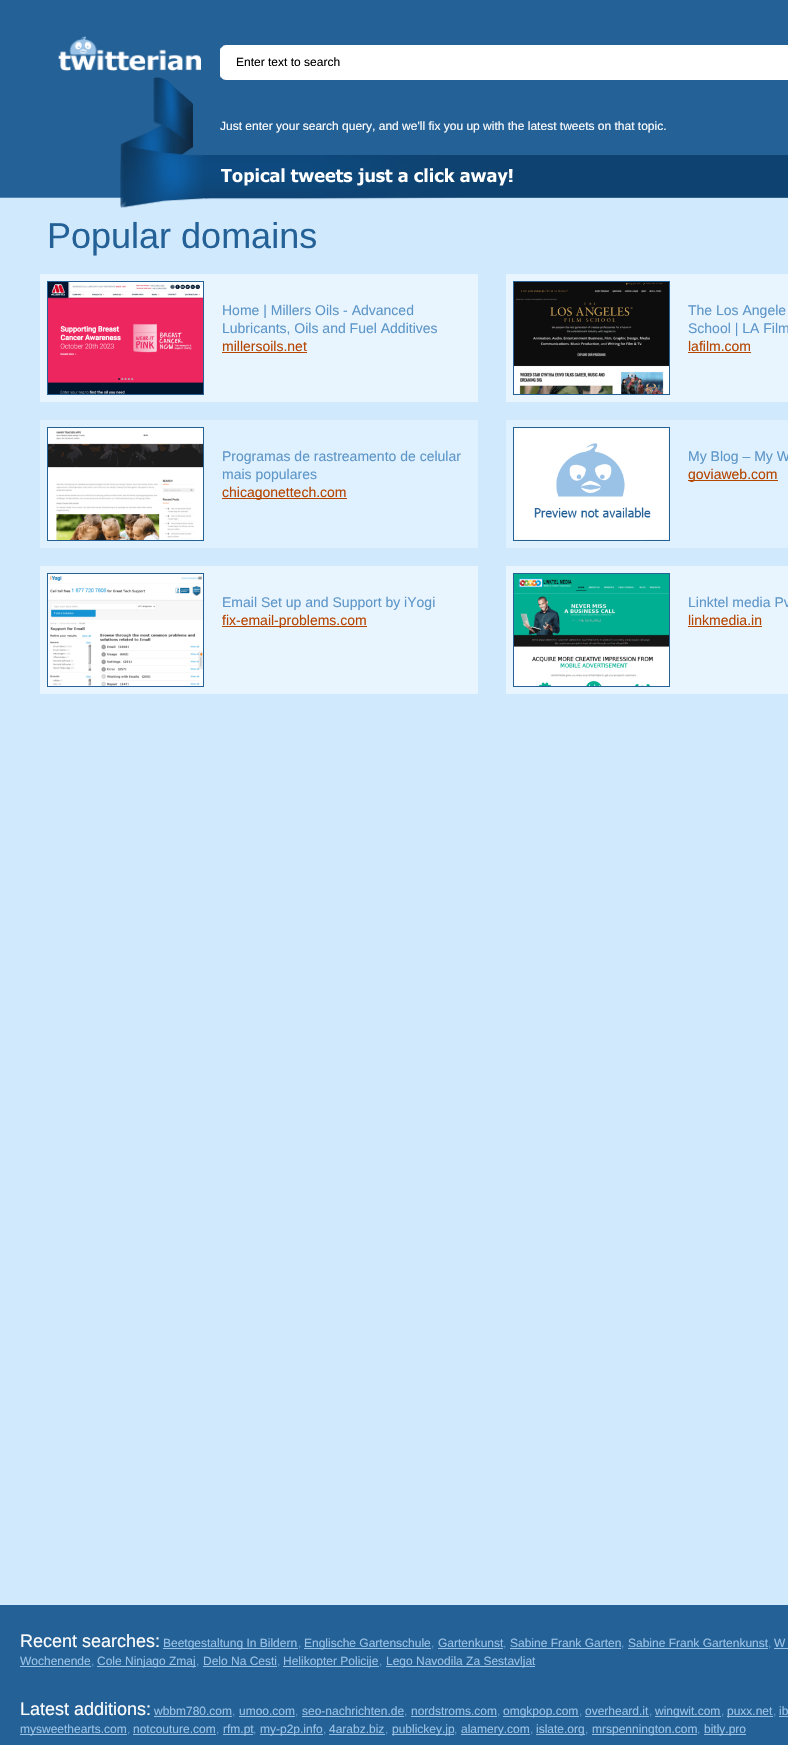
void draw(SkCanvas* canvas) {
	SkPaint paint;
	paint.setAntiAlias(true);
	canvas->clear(0xffd1e9fd);
	paint.setColor(0xff246197);
	canvas->drawRect(SkRect::MakeXYWH(0, 0, 788, 197), paint);
	paint.setColor(0xff5285b2);
	canvas->drawRect(SkRect::MakeXYWH(0, 197, 124, 1), paint);
	canvas->drawImageRect(SkImages::DeferredFromEncodedData(SkData::MakeFromFileName("img1.png")), SkRect::MakeXYWH(58, 36, 143, 35), SkSamplingOptions());
	SkFont f1(fontMgr->matchFamilyStyle("Liberation Sans", SkFontStyle::Normal()), 12);
	f1.setSubpixel(true);
	paint.setColor(0xffffffff);
	canvas->drawString("Just enter your search query, and we'll fix you up with the latest tweets on that topic.", 220, 130, f1, paint);
	canvas->drawImageRect(SkImages::DeferredFromEncodedData(SkData::MakeFromFileName("img3.png")), SkRect::MakeXYWH(120, 77, 668, 131), SkSamplingOptions());
	canvas->drawImageRect(SkImages::DeferredFromEncodedData(SkData::MakeFromFileName("img2.png")), SkRect::MakeXYWH(220, 45, 6, 35), SkSamplingOptions());
	canvas->drawRect(SkRect::MakeXYWH(226, 45, 562, 35), paint);
	paint.setColor(0xff000000);
	canvas->drawString("Enter text to search", 236, 66, f1, paint);
	SkFont f2(fontMgr->matchFamilyStyle("Liberation Sans", SkFontStyle::Normal()), 36);
	f2.setSubpixel(true);
	paint.setColor(0xff246197);
	canvas->drawString("Popular domains", 47, 248, f2, paint);
	paint.setColor(0xffe8f4fe);
	canvas->drawRect(SkRect::MakeXYWH(40, 274, 438, 128), paint);
	paint.setStroke(true);
	paint.setStrokeWidth(1);
	paint.setColor(0xff246197);
	canvas->drawRect(SkRect::MakeXYWH(47.5, 281.5, 156, 113), paint);
	canvas->drawImageRect(SkImages::DeferredFromEncodedData(SkData::MakeFromFileName("img4.png")), SkRect::MakeXYWH(48, 282, 155, 112), SkSamplingOptions());
	SkFont f3(fontMgr->matchFamilyStyle("Liberation Sans", SkFontStyle::Normal()), 14);
	f3.setSubpixel(true);
	paint.setStroke(false);
	paint.setColor(0xff5d96c8);
	canvas->drawString("Home | Millers Oils - Advanced", 222, 315, f3, paint);
	canvas->drawString("Lubricants, Oils and Fuel Additives", 222, 333, f3, paint);
	paint.setColor(0xffb64500);
	canvas->drawString("millersoils.net", 222, 351, f3, paint);
	canvas->drawRect(SkRect::MakeXYWH(222, 352, 85, 1), paint);
	paint.setColor(0xffe8f4fe);
	canvas->drawRect(SkRect::MakeXYWH(506, 274, 282, 128), paint);
	paint.setStroke(true);
	paint.setColor(0xff246197);
	canvas->drawRect(SkRect::MakeXYWH(513.5, 281.5, 156, 113), paint);
	canvas->drawImageRect(SkImages::DeferredFromEncodedData(SkData::MakeFromFileName("img5.png")), SkRect::MakeXYWH(514, 282, 155, 112), SkSamplingOptions());
	paint.setStroke(false);
	paint.setColor(0xff5d96c8);
	canvas->drawString("The Los Angele", 688, 315, f3, paint);
	canvas->drawString("School | LA Film", 688, 333, f3, paint);
	paint.setColor(0xffb64500);
	canvas->drawString("lafilm.com", 688, 351, f3, paint);
	canvas->drawRect(SkRect::MakeXYWH(688, 352, 63, 1), paint);
	paint.setColor(0xffdff0fe);
	canvas->drawRect(SkRect::MakeXYWH(40, 420, 438, 128), paint);
	paint.setStroke(true);
	paint.setColor(0xff246197);
	canvas->drawRect(SkRect::MakeXYWH(47.5, 427.5, 156, 113), paint);
	canvas->drawImageRect(SkImages::DeferredFromEncodedData(SkData::MakeFromFileName("img6.png")), SkRect::MakeXYWH(48, 428, 155, 112), SkSamplingOptions());
	paint.setStroke(false);
	paint.setColor(0xff5d96c8);
	canvas->drawString("Programas de rastreamento de celular", 222, 461, f3, paint);
	canvas->drawString("mais populares", 222, 479, f3, paint);
	paint.setColor(0xffb64500);
	canvas->drawRect(SkRect::MakeXYWH(222, 498, 125, 1), paint);
	canvas->drawString("chicagonettech.com", 222, 497, f3, paint);
	paint.setColor(0xffdff0fe);
	canvas->drawRect(SkRect::MakeXYWH(506, 420, 282, 128), paint);
	paint.setStroke(true);
	paint.setColor(0xff246197);
	canvas->drawRect(SkRect::MakeXYWH(513.5, 427.5, 156, 113), paint);
	canvas->drawImageRect(SkImages::DeferredFromEncodedData(SkData::MakeFromFileName("img7.png")), SkRect::MakeXYWH(514, 428, 155, 112), SkSamplingOptions());
	paint.setStroke(false);
	paint.setColor(0xff5d96c8);
	canvas->drawString("My Blog – My W", 688, 461, f3, paint);
	paint.setColor(0xffb64500);
	canvas->drawRect(SkRect::MakeXYWH(688, 480, 90, 1), paint);
	canvas->drawString("goviaweb.com", 688, 479, f3, paint);
	paint.setColor(0xffe8f4fe);
	canvas->drawRect(SkRect::MakeXYWH(40, 566, 438, 128), paint);
	paint.setStroke(true);
	paint.setColor(0xff246197);
	canvas->drawRect(SkRect::MakeXYWH(47.5, 573.5, 156, 113), paint);
	canvas->drawImageRect(SkImages::DeferredFromEncodedData(SkData::MakeFromFileName("img8.png")), SkRect::MakeXYWH(48, 574, 155, 112), SkSamplingOptions());
	paint.setStroke(false);
	paint.setColor(0xff5d96c8);
	canvas->drawString("Email Set up and Support by iYogi", 222, 607, f3, paint);
	paint.setColor(0xffb64500);
	canvas->drawRect(SkRect::MakeXYWH(222, 626, 145, 1), paint);
	canvas->drawString("fix-email-problems.com", 222, 625, f3, paint);
	paint.setColor(0xffe8f4fe);
	canvas->drawRect(SkRect::MakeXYWH(506, 566, 282, 128), paint);
	paint.setStroke(true);
	paint.setColor(0xff246197);
	canvas->drawRect(SkRect::MakeXYWH(513.5, 573.5, 156, 113), paint);
	canvas->drawImageRect(SkImages::DeferredFromEncodedData(SkData::MakeFromFileName("img9.png")), SkRect::MakeXYWH(514, 574, 155, 112), SkSamplingOptions());
	paint.setStroke(false);
	paint.setColor(0xff5d96c8);
	canvas->drawString("Linktel media Pv", 688, 607, f3, paint);
	paint.setColor(0xffb64500);
	canvas->drawString("linkmedia.in", 688, 625, f3, paint);
	canvas->drawRect(SkRect::MakeXYWH(688, 626, 74, 1), paint);
	paint.setColor(0xff246197);
	canvas->drawRect(SkRect::MakeXYWH(0, 1605, 788, 140), paint);
	SkFont f4(fontMgr->matchFamilyStyle("Liberation Sans", SkFontStyle::Normal()), 18);
	f4.setSubpixel(true);
	paint.setColor(0xffffffff);
	canvas->drawString("Recent searches:", 20, 1647, f4, paint);
	paint.setColor(0xff99c2e6);
	canvas->drawRect(SkRect::MakeXYWH(163, 1648, 135, 1), paint);
	canvas->drawString("Beetgestaltung In Bildern", 163, 1647, f1, paint);
	paint.setColor(0xff5d96c8);
	canvas->drawString(",", 298, 1647, f1, paint);
	paint.setColor(0xff99c2e6);
	canvas->drawRect(SkRect::MakeXYWH(304, 1648, 127, 1), paint);
	canvas->drawString("Englische Gartenschule", 304, 1647, f1, paint);
	paint.setColor(0xff5d96c8);
	canvas->drawString(",", 431, 1647, f1, paint);
	paint.setColor(0xff99c2e6);
	canvas->drawString("Gartenkunst", 438, 1647, f1, paint);
	canvas->drawRect(SkRect::MakeXYWH(438, 1648, 65, 1), paint);
	paint.setColor(0xff5d96c8);
	canvas->drawString(",", 503, 1647, f1, paint);
	paint.setColor(0xff99c2e6);
	canvas->drawString("Sabine Frank Garten", 510, 1647, f1, paint);
	canvas->drawRect(SkRect::MakeXYWH(510, 1648, 111, 1), paint);
	paint.setColor(0xff5d96c8);
	canvas->drawString(",", 621, 1647, f1, paint);
	paint.setColor(0xff99c2e6);
	canvas->drawString("Sabine Frank Gartenkunst", 628, 1647, f1, paint);
	canvas->drawRect(SkRect::MakeXYWH(628, 1648, 140, 1), paint);
	paint.setColor(0xff5d96c8);
	canvas->drawString(",", 768, 1647, f1, paint);
	paint.setColor(0xff99c2e6);
	canvas->drawString("W", 774, 1647, f1, paint);
	canvas->drawRect(SkRect::MakeXYWH(774, 1648, 14, 1), paint);
	canvas->drawString("Wochenende", 20, 1665, f1, paint);
	canvas->drawRect(SkRect::MakeXYWH(20, 1666, 71, 1), paint);
	paint.setColor(0xff5d96c8);
	canvas->drawString(",", 91, 1665, f1, paint);
	paint.setColor(0xff99c2e6);
	canvas->drawRect(SkRect::MakeXYWH(97, 1666, 99, 1), paint);
	canvas->drawString("Cole Ninjago Zmaj", 97, 1665, f1, paint);
	paint.setColor(0xff5d96c8);
	canvas->drawString(",", 196, 1665, f1, paint);
	paint.setColor(0xff99c2e6);
	canvas->drawString("Delo Na Cesti", 203, 1665, f1, paint);
	canvas->drawRect(SkRect::MakeXYWH(203, 1666, 74, 1), paint);
	paint.setColor(0xff5d96c8);
	canvas->drawString(",", 277, 1665, f1, paint);
	paint.setColor(0xff99c2e6);
	canvas->drawRect(SkRect::MakeXYWH(283, 1666, 96, 1), paint);
	canvas->drawString("Helikopter Policije", 283, 1665, f1, paint);
	paint.setColor(0xff5d96c8);
	canvas->drawString(",", 379, 1665, f1, paint);
	paint.setColor(0xff99c2e6);
	canvas->drawRect(SkRect::MakeXYWH(386, 1666, 149, 1), paint);
	canvas->drawString("Lego Navodila Za Sestavljat", 386, 1665, f1, paint);
	paint.setColor(0xffffffff);
	canvas->drawString("Latest additions:", 20, 1715, f4, paint);
	paint.setColor(0xff99c2e6);
	canvas->drawString("wbbm780.com", 154, 1715, f1, paint);
	canvas->drawRect(SkRect::MakeXYWH(154, 1716, 78, 1), paint);
	paint.setColor(0xff5d96c8);
	canvas->drawString(",", 232, 1715, f1, paint);
	paint.setColor(0xff99c2e6);
	canvas->drawString("umoo.com", 239, 1715, f1, paint);
	canvas->drawRect(SkRect::MakeXYWH(239, 1716, 56, 1), paint);
	paint.setColor(0xff5d96c8);
	canvas->drawString(",", 295, 1715, f1, paint);
	paint.setColor(0xff99c2e6);
	canvas->drawString("seo-nachrichten.de", 302, 1715, f1, paint);
	canvas->drawRect(SkRect::MakeXYWH(302, 1716, 102, 1), paint);
	paint.setColor(0xff5d96c8);
	canvas->drawString(",", 404, 1715, f1, paint);
	paint.setColor(0xff99c2e6);
	canvas->drawString("nordstroms.com", 411, 1715, f1, paint);
	canvas->drawRect(SkRect::MakeXYWH(411, 1716, 86, 1), paint);
	paint.setColor(0xff5d96c8);
	canvas->drawString(",", 497, 1715, f1, paint);
	paint.setColor(0xff99c2e6);
	canvas->drawRect(SkRect::MakeXYWH(503, 1716, 76, 1), paint);
	canvas->drawString("omgkpop.com", 503, 1715, f1, paint);
	paint.setColor(0xff5d96c8);
	canvas->drawString(",", 579, 1715, f1, paint);
	paint.setColor(0xff99c2e6);
	canvas->drawString("overheard.it", 585, 1715, f1, paint);
	canvas->drawRect(SkRect::MakeXYWH(585, 1716, 64, 1), paint);
	paint.setColor(0xff5d96c8);
	canvas->drawString(",", 649, 1715, f1, paint);
	paint.setColor(0xff99c2e6);
	canvas->drawRect(SkRect::MakeXYWH(655, 1716, 66, 1), paint);
	canvas->drawString("wingwit.com", 655, 1715, f1, paint);
	paint.setColor(0xff5d96c8);
	canvas->drawString(",", 721, 1715, f1, paint);
	paint.setColor(0xff99c2e6);
	canvas->drawRect(SkRect::MakeXYWH(727, 1716, 46, 1), paint);
	canvas->drawString("puxx.net", 727, 1715, f1, paint);
	paint.setColor(0xff5d96c8);
	canvas->drawString(",", 773, 1715, f1, paint);
	paint.setColor(0xff99c2e6);
	canvas->drawString("ib", 779, 1715, f1, paint);
	canvas->drawRect(SkRect::MakeXYWH(779, 1716, 9, 1), paint);
	canvas->drawRect(SkRect::MakeXYWH(20, 1734, 107, 1), paint);
	canvas->drawString("mysweethearts.com", 20, 1733, f1, paint);
	paint.setColor(0xff5d96c8);
	canvas->drawString(",", 127, 1733, f1, paint);
	paint.setColor(0xff99c2e6);
	canvas->drawString("notcouture.com", 133, 1733, f1, paint);
	canvas->drawRect(SkRect::MakeXYWH(133, 1734, 83, 1), paint);
	paint.setColor(0xff5d96c8);
	canvas->drawString(",", 216, 1733, f1, paint);
	paint.setColor(0xff99c2e6);
	canvas->drawRect(SkRect::MakeXYWH(223, 1734, 30, 1), paint);
	canvas->drawString("rfm.pt", 223, 1733, f1, paint);
	paint.setColor(0xff5d96c8);
	canvas->drawString(",", 253, 1733, f1, paint);
	paint.setColor(0xff99c2e6);
	canvas->drawRect(SkRect::MakeXYWH(260, 1734, 63, 1), paint);
	canvas->drawString("my-p2p.info", 260, 1733, f1, paint);
	paint.setColor(0xff5d96c8);
	canvas->drawString(",", 323, 1733, f1, paint);
	paint.setColor(0xff99c2e6);
	canvas->drawString("4arabz.biz", 329, 1733, f1, paint);
	canvas->drawRect(SkRect::MakeXYWH(329, 1734, 56, 1), paint);
	paint.setColor(0xff5d96c8);
	canvas->drawString(",", 385, 1733, f1, paint);
	paint.setColor(0xff99c2e6);
	canvas->drawRect(SkRect::MakeXYWH(392, 1734, 62, 1), paint);
	canvas->drawString("publickey.jp", 392, 1733, f1, paint);
	paint.setColor(0xff5d96c8);
	canvas->drawString(",", 454, 1733, f1, paint);
	paint.setColor(0xff99c2e6);
	canvas->drawRect(SkRect::MakeXYWH(461, 1734, 69, 1), paint);
	canvas->drawString("alamery.com", 461, 1733, f1, paint);
	paint.setColor(0xff5d96c8);
	canvas->drawString(",", 530, 1733, f1, paint);
	paint.setColor(0xff99c2e6);
	canvas->drawRect(SkRect::MakeXYWH(536, 1734, 49, 1), paint);
	canvas->drawString("islate.org", 536, 1733, f1, paint);
	paint.setColor(0xff5d96c8);
	canvas->drawString(",", 585, 1733, f1, paint);
	paint.setColor(0xff99c2e6);
	canvas->drawRect(SkRect::MakeXYWH(592, 1734, 105, 1), paint);
	canvas->drawString("mrspennington.com", 592, 1733, f1, paint);
	paint.setColor(0xff5d96c8);
	canvas->drawString(",", 697, 1733, f1, paint);
	paint.setColor(0xff99c2e6);
	canvas->drawRect(SkRect::MakeXYWH(704, 1734, 42, 1), paint);
	canvas->drawString("bitly.pro", 704, 1733, f1, paint);
}
